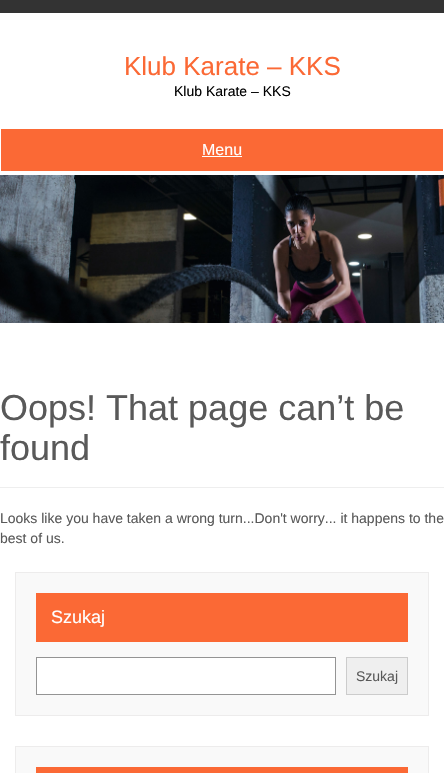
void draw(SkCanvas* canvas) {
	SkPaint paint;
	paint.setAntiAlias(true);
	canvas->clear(0xffffffff);
	paint.setColor(0xff333333);
	canvas->drawRect(SkRect::MakeXYWH(0, 0, 444, 13), paint);
	SkFont f1(fontMgr->matchFamilyStyle("Liberation Sans", SkFontStyle::Normal()), 26);
	f1.setSubpixel(true);
	paint.setColor(0xfffb6935);
	canvas->drawString("Klub Karate – KKS", 124, 75, f1, paint);
	SkFont f2(fontMgr->matchFamilyStyle("Liberation Sans", SkFontStyle::Normal()), 14);
	f2.setSubpixel(true);
	paint.setColor(0xff000000);
	canvas->drawString("Klub Karate – KKS", 174, 96, f2, paint);
	paint.setColor(0xfffb6935);
	canvas->drawRect(SkRect::MakeXYWH(1, 129, 442, 42), paint);
	SkFont f3(fontMgr->matchFamilyStyle("Liberation Sans", SkFontStyle::Normal()), 16);
	f3.setSubpixel(true);
	paint.setColor(0xffffffff);
	canvas->drawString("Menu", 202, 155, f3, paint);
	canvas->drawRect(SkRect::MakeXYWH(202, 156, 40, 1), paint);
	canvas->drawImageRect(SkImages::DeferredFromEncodedData(SkData::MakeFromFileName("img1.png")), SkRect::MakeXYWH(0, 175, 444, 148), SkSamplingOptions());
	paint.setColor(0xffeeeeee);
	canvas->drawRect(SkRect::MakeXYWH(0, 487, 444, 1), paint);
	SkFont f4(fontMgr->matchFamilyStyle("Liberation Sans", SkFontStyle::Normal()), 36);
	f4.setSubpixel(true);
	paint.setColor(0xff595959);
	canvas->drawString("Oops! That page can’t be", 0, 420, f4, paint);
	canvas->drawString("found", 0, 460, f4, paint);
	canvas->drawString("Looks like you have taken a wrong turn...Don't worry... it happens to the", 0, 523, f2, paint);
	canvas->drawString("best of us.", 0, 543, f2, paint);
	paint.setColor(0xfff9f9f9);
	canvas->drawRect(SkRect::MakeXYWH(15.5, 572.5, 413, 143), paint);
	paint.setStroke(true);
	paint.setStrokeWidth(1);
	paint.setColor(0xffedecec);
	canvas->drawRect(SkRect::MakeXYWH(15.5, 572.5, 413, 143), paint);
	paint.setStroke(false);
	paint.setColor(0xfffb6935);
	canvas->drawRect(SkRect::MakeXYWH(36, 593, 372, 49), paint);
	SkFont f5(fontMgr->matchFamilyStyle("Liberation Sans", SkFontStyle::Normal()), 18);
	f5.setSubpixel(true);
	paint.setColor(0xffffffff);
	canvas->drawString("Szukaj", 51, 623, f5, paint);
	canvas->drawRect(SkRect::MakeXYWH(36.5, 657.5, 299, 37), paint);
	paint.setStroke(true);
	paint.setColor(0xff949494);
	canvas->drawRect(SkRect::MakeXYWH(36.5, 657.5, 299, 37), paint);
	paint.setStroke(false);
	paint.setColor(0xffefefef);
	canvas->drawRect(SkRect::MakeXYWH(346.5, 657.5, 61, 37), paint);
	paint.setStroke(true);
	paint.setColor(0xffcccccc);
	canvas->drawRect(SkRect::MakeXYWH(346.5, 657.5, 61, 37), paint);
	paint.setStroke(false);
	paint.setColor(0xff595959);
	canvas->drawString("Szukaj", 356, 681, f2, paint);
	paint.setColor(0xfff9f9f9);
	canvas->drawRect(SkRect::MakeXYWH(15.5, 746.5, 413, 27), paint);
	paint.setStroke(true);
	paint.setColor(0xffedecec);
	canvas->drawRect(SkRect::MakeXYWH(15.5, 746.5, 413, 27), paint);
	paint.setStroke(false);
	paint.setColor(0xfffb6935);
	canvas->drawRect(SkRect::MakeXYWH(36, 767, 372, 6), paint);
}
